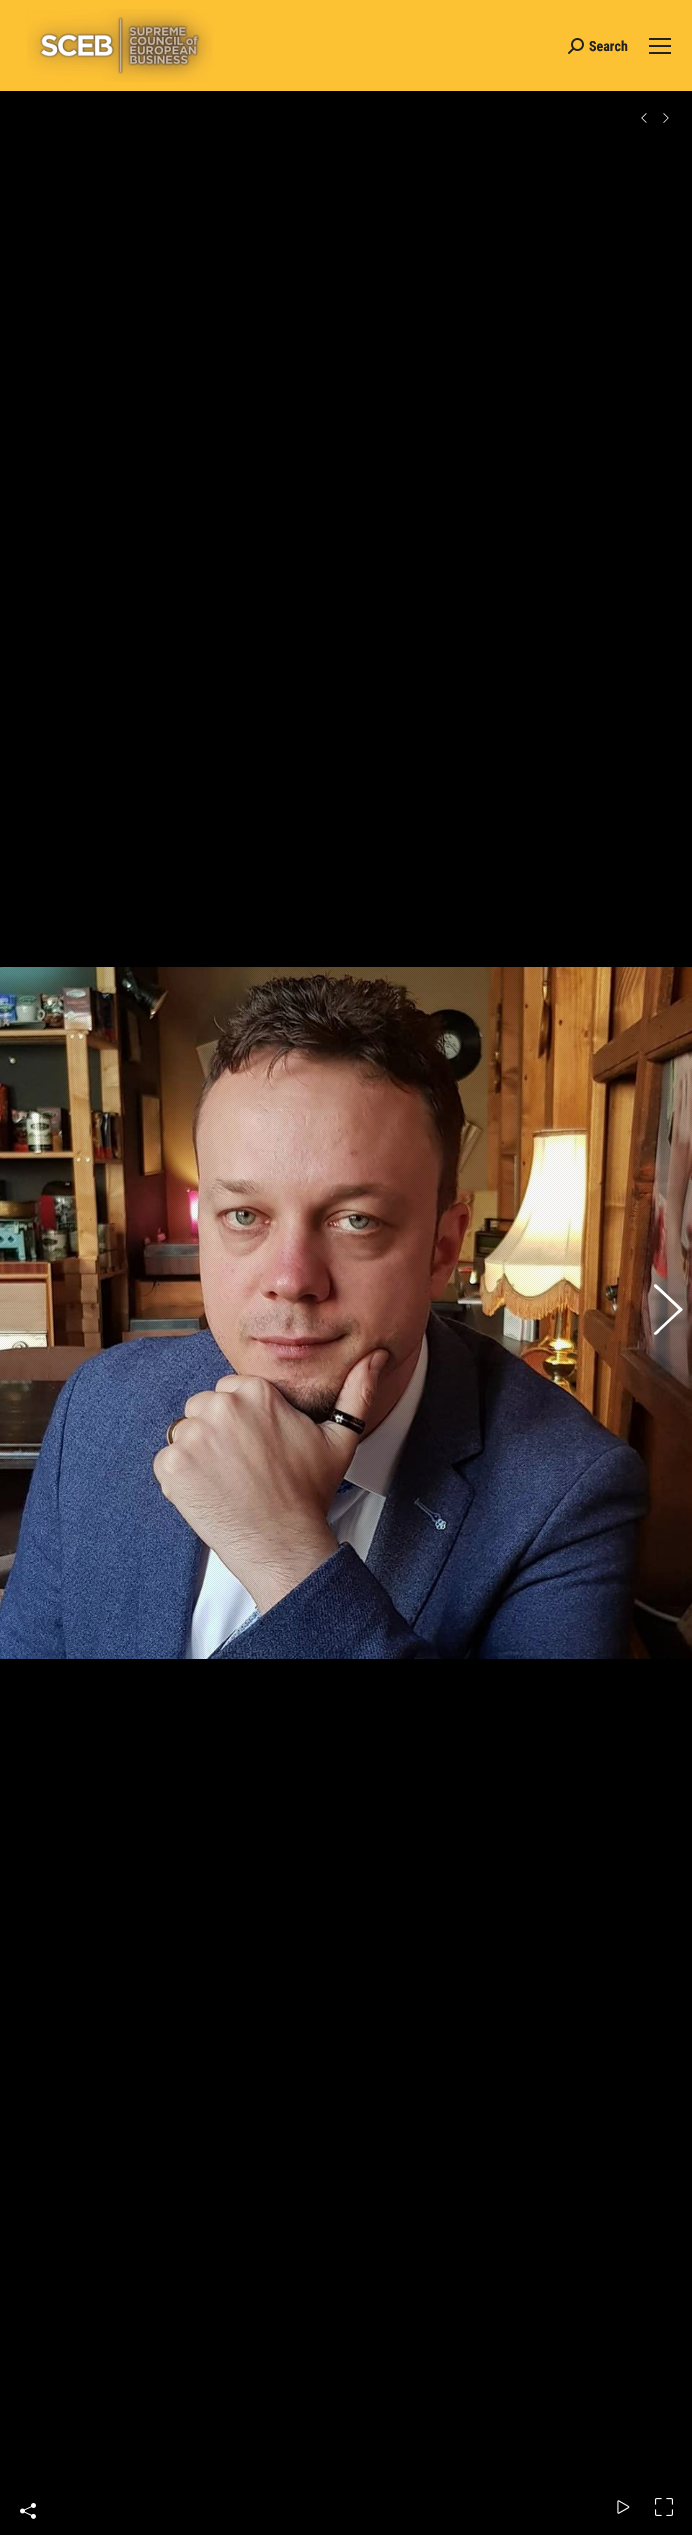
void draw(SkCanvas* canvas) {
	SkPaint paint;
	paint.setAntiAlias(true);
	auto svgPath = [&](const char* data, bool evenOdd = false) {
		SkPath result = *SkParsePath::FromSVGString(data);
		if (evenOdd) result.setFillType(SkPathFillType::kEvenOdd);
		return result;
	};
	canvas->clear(0xff000000);
	paint.setColor(0xfffdc134);
	canvas->drawRect(SkRect::MakeXYWH(0, 0, 692, 91), paint);
	canvas->drawImageRect(SkImages::DeferredFromEncodedData(SkData::MakeFromFileName("img1.png")), SkRect::MakeXYWH(27, 9, 186, 73), SkSamplingOptions());
	canvas->drawImageRect(SkImages::DeferredFromEncodedData(SkData::MakeFromFileName("img2.png")), SkRect::MakeXYWH(568, 38, 16, 16), SkSamplingOptions());
	SkFont f1(fontMgr->matchFamilyStyle("Roboto Condensed", SkFontStyle::Bold()), 14);
	f1.setSubpixel(true);
	paint.setColor(0xff222222);
	canvas->drawString("Search", 589, 51, f1, paint);
	canvas->drawRect(SkRect::MakeXYWH(649, 38, 22, 2), paint);
	canvas->drawRect(SkRect::MakeXYWH(649, 45, 22, 2), paint);
	canvas->drawRect(SkRect::MakeXYWH(649, 52, 22, 2), paint);
	canvas->drawImageRect(SkImages::DeferredFromEncodedData(SkData::MakeFromFileName("img3.png")), SkRect::MakeXYWH(641, 113, 6, 10), SkSamplingOptions());
	canvas->drawImageRect(SkImages::DeferredFromEncodedData(SkData::MakeFromFileName("img4.png")), SkRect::MakeXYWH(663, 113, 6, 10), SkSamplingOptions());
	canvas->drawImageRect(SkImages::DeferredFromEncodedData(SkData::MakeFromFileName("img5.png")), SkRect::MakeXYWH(0, 967, 692, 692), SkSamplingOptions());
	canvas->drawImageRect(SkImages::DeferredFromEncodedData(SkData::MakeFromFileName("img6.png")), SkRect::MakeXYWH(0, 967, 692, 692), SkSamplingOptions());
	paint.setColor(0x4d000000);
	paint.setMaskFilter(SkMaskFilter::MakeBlur(kNormal_SkBlurStyle, 2.5));
	canvas->drawRoundRect(SkRect::MakeXYWH(649, 1296, 38, 3), 1.5, 1.5, paint);
	paint.setMaskFilter(nullptr);
	paint.setColor(0xffffffff);
	canvas->drawPath(svgPath("M656.5 1284.5L682.5 1309L682 1310.5C680.5 1312.5 678 1309 675.5 1306.5L658.5 1290.5C657 1289 653 1287 654 1285C654.5 1284 655.5 1284 656.5 1284.5Z"), paint);
	paint.setColor(0x4d000000);
	paint.setMaskFilter(SkMaskFilter::MakeBlur(kNormal_SkBlurStyle, 2.5));
	canvas->drawRoundRect(SkRect::MakeXYWH(649, 1320, 38, 3), 1.5, 1.5, paint);
	paint.setMaskFilter(nullptr);
	paint.setColor(0xffffffff);
	canvas->drawPath(svgPath("M654.5 1332.5L680.5 1308L682 1308.5C684 1310 680 1312.5 677.5 1314.5L660.5 1330.5C659 1332 656.5 1336 654.5 1334.5C653.5 1334 653.5 1333 654.5 1332.5Z"), paint);
	canvas->drawImageRect(SkImages::DeferredFromEncodedData(SkData::MakeFromFileName("img7.png")), SkRect::MakeXYWH(20, 2503, 16, 16), SkSamplingOptions());
	canvas->drawImageRect(SkImages::DeferredFromEncodedData(SkData::MakeFromFileName("img8.png")), SkRect::MakeXYWH(617, 2500, 13, 14), SkSamplingOptions());
	canvas->drawImageRect(SkImages::DeferredFromEncodedData(SkData::MakeFromFileName("img9.png")), SkRect::MakeXYWH(655, 2498, 18, 18), SkSamplingOptions());
}
